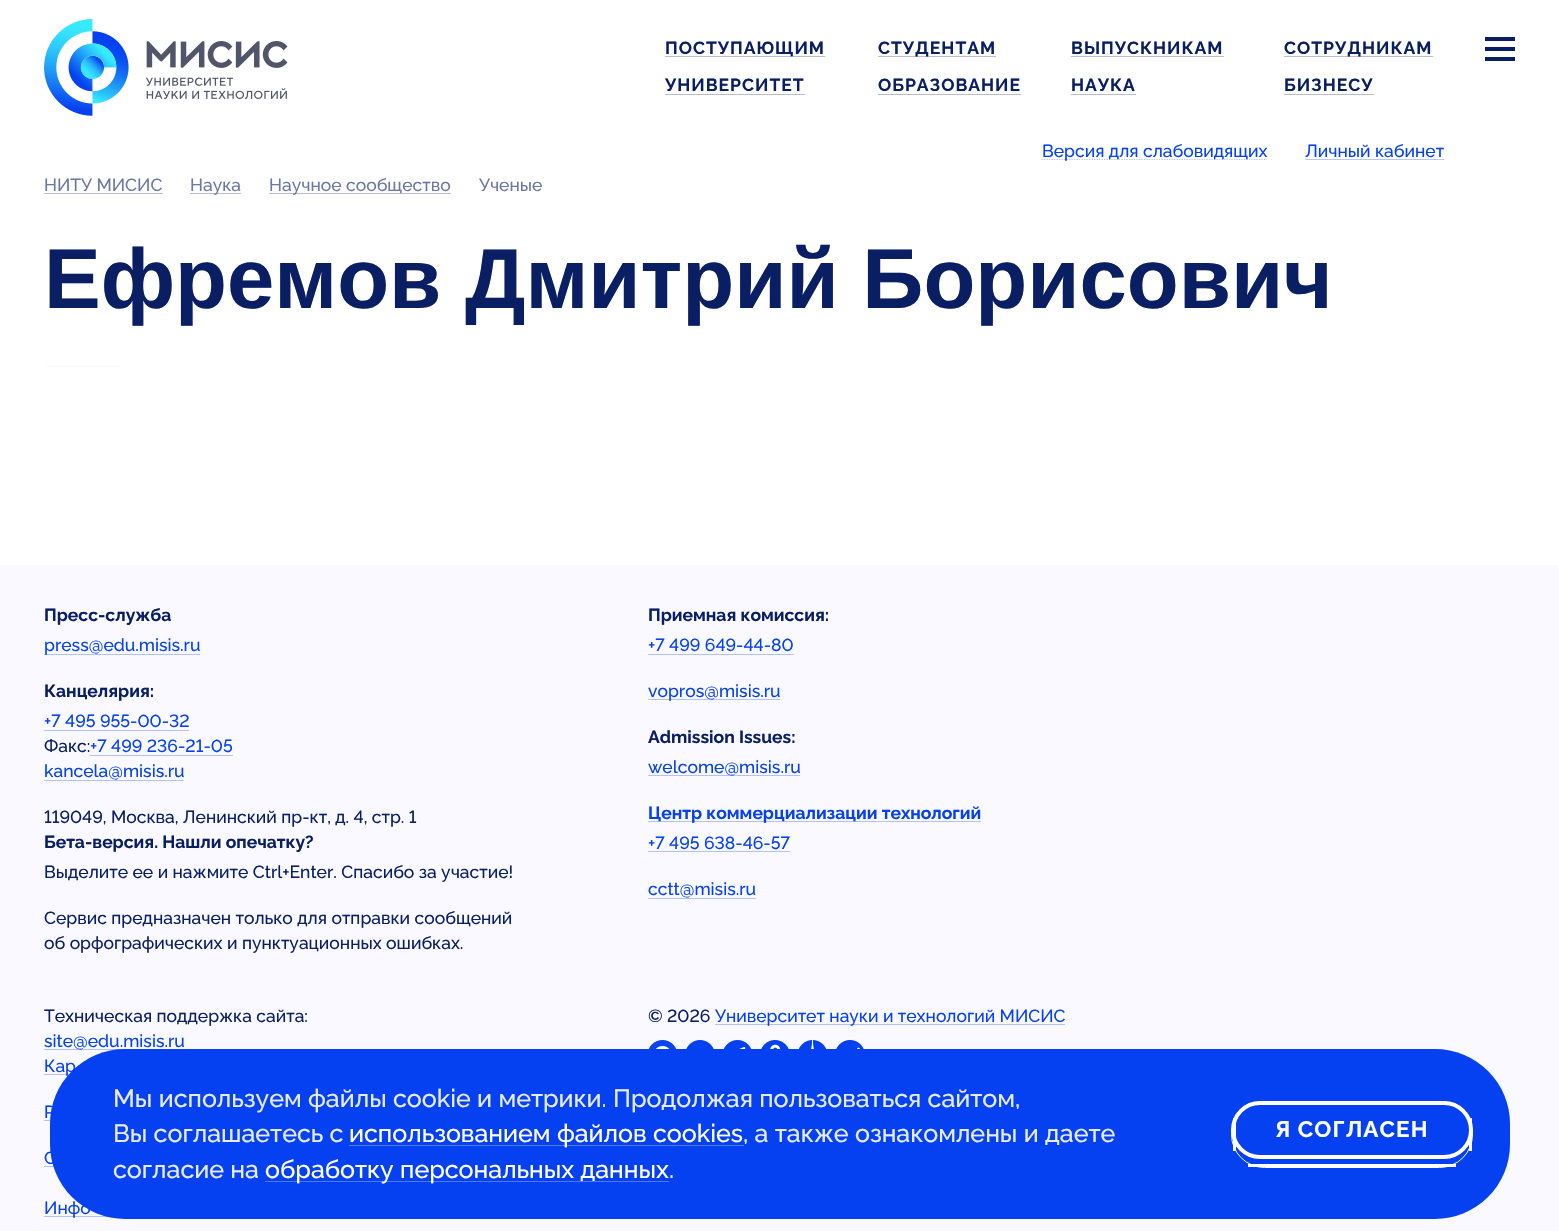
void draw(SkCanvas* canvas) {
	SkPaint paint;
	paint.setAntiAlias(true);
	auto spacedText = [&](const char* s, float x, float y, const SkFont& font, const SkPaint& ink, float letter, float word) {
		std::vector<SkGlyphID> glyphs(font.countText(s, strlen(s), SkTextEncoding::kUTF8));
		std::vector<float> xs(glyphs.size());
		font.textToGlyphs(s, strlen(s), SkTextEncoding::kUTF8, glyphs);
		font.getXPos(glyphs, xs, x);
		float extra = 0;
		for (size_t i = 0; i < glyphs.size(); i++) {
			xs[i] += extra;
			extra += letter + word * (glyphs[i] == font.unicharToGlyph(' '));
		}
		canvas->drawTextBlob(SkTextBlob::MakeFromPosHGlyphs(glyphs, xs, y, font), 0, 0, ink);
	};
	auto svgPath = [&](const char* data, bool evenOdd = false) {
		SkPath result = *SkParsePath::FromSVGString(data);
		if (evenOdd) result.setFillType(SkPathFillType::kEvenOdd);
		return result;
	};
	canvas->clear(0xffffffff);
	canvas->drawImageRect(SkImages::DeferredFromEncodedData(SkData::MakeFromFileName("img1.png")), SkRect::MakeXYWH(44, 19, 244, 97), SkSamplingOptions());
	paint.setColor(0xffb6bcd1);
	canvas->drawRect(SkRect::MakeXYWH(665, 56, 160, 1), paint);
	SkFont f1(fontMgr->matchFamilyStyle("Raleway", SkFontStyle::Bold()), 17.5);
	f1.setSubpixel(true);
	paint.setColor(0xff0a1e64);
	spacedText("ПОСТУПАЮЩИМ", 665, 54, f1, paint, 1, 0);
	paint.setColor(0xffb6bcd1);
	canvas->drawRect(SkRect::MakeXYWH(878, 56, 118, 1), paint);
	paint.setColor(0xff0a1e64);
	spacedText("СТУДЕНТАМ", 878, 54, f1, paint, 1, 0);
	spacedText("ВЫПУСКНИКАМ", 1071, 54, f1, paint, 1, 0);
	paint.setColor(0xffb6bcd1);
	canvas->drawRect(SkRect::MakeXYWH(1071, 56, 153, 1), paint);
	canvas->drawRect(SkRect::MakeXYWH(1284, 56, 149, 1), paint);
	paint.setColor(0xff0a1e64);
	spacedText("СОТРУДНИКАМ", 1284, 54, f1, paint, 1, 0);
	canvas->drawRect(SkRect::MakeXYWH(1485, 37, 30, 4), paint);
	canvas->drawRect(SkRect::MakeXYWH(1485, 47, 30, 4), paint);
	canvas->drawRect(SkRect::MakeXYWH(1485, 57, 30, 4), paint);
	spacedText("УНИВЕРСИТЕТ", 665, 91, f1, paint, 1, 0);
	paint.setColor(0xffb6bcd1);
	canvas->drawRect(SkRect::MakeXYWH(665, 94, 140, 1), paint);
	paint.setColor(0xff0a1e64);
	spacedText("ОБРАЗОВАНИЕ", 878, 91, f1, paint, 1, 0);
	paint.setColor(0xffb6bcd1);
	canvas->drawRect(SkRect::MakeXYWH(878, 94, 143, 1), paint);
	paint.setColor(0xff0a1e64);
	spacedText("НАУКА", 1071, 91, f1, paint, 1, 0);
	paint.setColor(0xffb6bcd1);
	canvas->drawRect(SkRect::MakeXYWH(1071, 94, 65, 1), paint);
	paint.setColor(0xff0a1e64);
	spacedText("БИЗНЕСУ", 1284, 91, f1, paint, 1, 0);
	paint.setColor(0xffb6bcd1);
	canvas->drawRect(SkRect::MakeXYWH(1284, 94, 90, 1), paint);
	paint.setStroke(true);
	paint.setStrokeWidth(1.2);
	paint.setColor(0xffb4c6fb);
	paint.setPathEffect(SkDashPathEffect::Make({{1.25f, 1.25f}}, 0));
	canvas->drawPath(svgPath("M1041.5 159.5H1267"), paint);
	paint.setPathEffect(nullptr);
	SkFont f2(fontMgr->matchFamilyStyle("Raleway", SkFontStyle(500, SkFontStyle::kNormal_Width, SkFontStyle::kUpright_Slant)), 17.5);
	f2.setSubpixel(true);
	paint.setStroke(false);
	paint.setColor(0xff0541f0);
	canvas->drawString("Версия для слабовидящих", 1042, 157, f2, paint);
	canvas->drawString("Личный кабинет", 1305, 157, f2, paint);
	paint.setColor(0xffb4c6fb);
	canvas->drawRect(SkRect::MakeXYWH(1305, 159, 139, 1), paint);
	paint.setColor(0xff6c78a2);
	canvas->drawString("НИТУ МИСИС", 44, 191, f2, paint);
	paint.setColor(0xffb6bcd1);
	canvas->drawRect(SkRect::MakeXYWH(44, 193, 119, 1), paint);
	canvas->drawRect(SkRect::MakeXYWH(190, 193, 51, 1), paint);
	paint.setColor(0xff6c78a2);
	canvas->drawString("Наука", 190, 191, f2, paint);
	paint.setColor(0xffb6bcd1);
	canvas->drawRect(SkRect::MakeXYWH(269, 193, 182, 1), paint);
	paint.setColor(0xff6c78a2);
	canvas->drawString("Научное сообщество", 269, 191, f2, paint);
	canvas->drawString("Ученые", 479, 191, f2, paint);
	SkFont f3(fontMgr->matchFamilyStyle("Liberation Sans", SkFontStyle::Bold()), 85);
	f3.setSubpixel(true);
	paint.setColor(0xff0a1e64);
	canvas->drawString("Ефремов Дмитрий Борисович", 44, 308, f3, paint);
	paint.setColor(0xfff9f9ff);
	canvas->drawRect(SkRect::MakeXYWH(44, 366, 75, 1), paint);
	canvas->drawRect(SkRect::MakeXYWH(0, 565, 1559, 666), paint);
	paint.setColor(0xff0a1e64);
	canvas->drawString("Пресс-служба", 44, 621, f1, paint);
	paint.setColor(0xffb0c2fb);
	canvas->drawRect(SkRect::MakeXYWH(44, 654, 156, 1), paint);
	paint.setColor(0xff0541f0);
	canvas->drawString("press@edu.misis.ru", 44, 651, f2, paint);
	paint.setColor(0xff0a1e64);
	canvas->drawString("Канцелярия:", 44, 697, f1, paint);
	SkFont f4(fontMgr->matchFamilyStyle("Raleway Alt", SkFontStyle(500, SkFontStyle::kNormal_Width, SkFontStyle::kUpright_Slant)), 17.5);
	f4.setSubpixel(true);
	paint.setColor(0xff0541f0);
	canvas->drawString("+7 495 955-00-32", 44, 727, f4, paint);
	paint.setColor(0xffb0c2fb);
	canvas->drawRect(SkRect::MakeXYWH(44, 730, 145, 1), paint);
	paint.setColor(0xff0a1e64);
	canvas->drawString("Факс:", 44, 752, f2, paint);
	paint.setColor(0xff0541f0);
	canvas->drawString("+7 499 236-21-05", 90, 752, f4, paint);
	paint.setColor(0xffb0c2fb);
	canvas->drawRect(SkRect::MakeXYWH(90, 755, 143, 1), paint);
	paint.setColor(0xff0541f0);
	canvas->drawString("kancela@misis.ru", 44, 777, f2, paint);
	paint.setColor(0xffb0c2fb);
	canvas->drawRect(SkRect::MakeXYWH(44, 780, 140, 1), paint);
	paint.setColor(0xff0a1e64);
	canvas->drawString("119049, Москва, Ленинский пр-кт, д. 4, стр. 1", 44, 823, f4, paint);
	canvas->drawString("Бета-версия. Нашли опечатку?", 44, 848, f1, paint);
	canvas->drawString("Выделите ее и нажмите Ctrl+Enter. Спасибо за участие!", 44, 878, f2, paint);
	canvas->drawString("Сервис предназначен только для отправки сообщений", 44, 924, f2, paint);
	canvas->drawString("об орфографических и пунктуационных ошибках.", 44, 949, f2, paint);
	canvas->drawString("Приемная комиссия:", 648, 621, f1, paint);
	paint.setColor(0xff0541f0);
	canvas->drawString("+7 499 649-44-80", 648, 651, f4, paint);
	paint.setColor(0xffb0c2fb);
	canvas->drawRect(SkRect::MakeXYWH(648, 654, 146, 1), paint);
	canvas->drawRect(SkRect::MakeXYWH(648, 699, 132, 1), paint);
	paint.setColor(0xff0541f0);
	canvas->drawString("vopros@misis.ru", 648, 697, f2, paint);
	paint.setColor(0xff0a1e64);
	canvas->drawString("Admission Issues:", 648, 743, f1, paint);
	paint.setColor(0xffb0c2fb);
	canvas->drawRect(SkRect::MakeXYWH(648, 775, 152, 1), paint);
	paint.setColor(0xff0541f0);
	canvas->drawString("welcome@misis.ru", 648, 773, f2, paint);
	paint.setColor(0xffb0c2fb);
	canvas->drawRect(SkRect::MakeXYWH(648, 821, 333, 1), paint);
	paint.setColor(0xff0541f0);
	canvas->drawString("Центр коммерциализации технологий", 648, 819, f1, paint);
	canvas->drawString("+7 495 638-46-57", 648, 849, f4, paint);
	paint.setColor(0xffb0c2fb);
	canvas->drawRect(SkRect::MakeXYWH(648, 851, 142, 1), paint);
	paint.setColor(0xff0541f0);
	canvas->drawString("cctt@misis.ru", 648, 895, f2, paint);
	paint.setColor(0xffb0c2fb);
	canvas->drawRect(SkRect::MakeXYWH(648, 898, 108, 1), paint);
	paint.setColor(0xff0a1e64);
	canvas->drawString("Техническая поддержка сайта:", 44, 1022, f2, paint);
	paint.setColor(0xffb0c2fb);
	canvas->drawRect(SkRect::MakeXYWH(44, 1049, 80, 1), paint);
	paint.setColor(0xff0541f0);
	canvas->drawString("site@edu.misis.ru", 44, 1047, f2, paint);
	paint.setColor(0xffb0c2fb);
	canvas->drawRect(SkRect::MakeXYWH(44, 1074, 26, 1), paint);
	paint.setColor(0xff0541f0);
	canvas->drawString("Кар", 44, 1072, f2, paint);
	canvas->drawString("Р", 44, 1118, f2, paint);
	paint.setColor(0xffb0c2fb);
	canvas->drawRect(SkRect::MakeXYWH(44, 1120, 7, 1), paint);
	paint.setColor(0xff0541f0);
	canvas->drawString("С", 44, 1164, f2, paint);
	paint.setColor(0xffb0c2fb);
	canvas->drawRect(SkRect::MakeXYWH(44, 1166, 10, 1), paint);
	canvas->drawRect(SkRect::MakeXYWH(44, 1216, 64, 1), paint);
	paint.setColor(0xff0541f0);
	canvas->drawString("Инфо", 44, 1214, f2, paint);
	paint.setColor(0xff0a1e64);
	canvas->drawString("©", 648, 1022, f2, paint);
	canvas->drawString("2026", 667, 1022, f4, paint);
	paint.setColor(0xffb0c2fb);
	canvas->drawRect(SkRect::MakeXYWH(715, 1024, 350, 1), paint);
	paint.setColor(0xff0541f0);
	canvas->drawString("Университет науки и технологий МИСИС", 715, 1022, f2, paint);
	canvas->drawImageRect(SkImages::DeferredFromEncodedData(SkData::MakeFromFileName("img2.png")), SkRect::MakeXYWH(648, 1040, 29, 9), SkSamplingOptions());
	canvas->drawImageRect(SkImages::DeferredFromEncodedData(SkData::MakeFromFileName("img3.png")), SkRect::MakeXYWH(686, 1040, 28, 9), SkSamplingOptions());
	canvas->drawImageRect(SkImages::DeferredFromEncodedData(SkData::MakeFromFileName("img4.png")), SkRect::MakeXYWH(723, 1040, 29, 9), SkSamplingOptions());
	canvas->drawImageRect(SkImages::DeferredFromEncodedData(SkData::MakeFromFileName("img5.png")), SkRect::MakeXYWH(761, 1040, 28, 9), SkSamplingOptions());
	canvas->drawImageRect(SkImages::DeferredFromEncodedData(SkData::MakeFromFileName("img6.png")), SkRect::MakeXYWH(798, 1040, 29, 9), SkSamplingOptions());
	canvas->drawImageRect(SkImages::DeferredFromEncodedData(SkData::MakeFromFileName("img7.png")), SkRect::MakeXYWH(836, 1040, 28, 9), SkSamplingOptions());
	canvas->drawRoundRect(SkRect::MakeXYWH(50, 1049, 1460, 170), 75, 75, paint);
	SkFont f5(fontMgr->matchFamilyStyle("Raleway", SkFontStyle(500, SkFontStyle::kNormal_Width, SkFontStyle::kUpright_Slant)), 25);
	f5.setSubpixel(true);
	paint.setColor(0xffe6ecfe);
	canvas->drawString("Мы используем файлы cookie и метрики. Продолжая пользоваться сайтом,", 113, 1107, f5, paint);
	canvas->drawString("Вы соглашаетесь с", 113, 1142, f5, paint);
	paint.setColor(0xff507af5);
	canvas->drawRect(SkRect::MakeXYWH(349, 1145, 395, 1), paint);
	paint.setColor(0xffffffff);
	canvas->drawString("использованием файлов cookies", 349, 1142, f5, paint);
	paint.setColor(0xffe6ecfe);
	canvas->drawString(", а также ознакомлены и даете", 743, 1142, f5, paint);
	canvas->drawString("согласие на", 113, 1178, f5, paint);
	paint.setColor(0xff507af5);
	canvas->drawRect(SkRect::MakeXYWH(265, 1181, 404, 1), paint);
	paint.setColor(0xffffffff);
	canvas->drawString("обработку персональных данных", 265, 1178, f5, paint);
	paint.setColor(0xffe6ecfe);
	canvas->drawString(".", 669, 1178, f5, paint);
	paint.setStroke(true);
	paint.setStrokeWidth(4);
	paint.setColor(0xffffffff);
	canvas->drawRoundRect(SkRect::MakeXYWH(1233, 1103, 238, 54), 27, 27, paint);
	paint.setStrokeWidth(1);
	canvas->drawRoundRect(SkRect::MakeXYWH(1231.5, 1101.5, 241, 66), 33, 33, paint);
	paint.setStroke(false);
	canvas->drawRect(SkRect::MakeXYWH(1469, 1118, 3, 33), paint);
	canvas->drawRect(SkRect::MakeXYWH(1248, 1164, 208, 3), paint);
	canvas->drawRect(SkRect::MakeXYWH(1233, 1118, 3, 33), paint);
	SkFont f6(fontMgr->matchFamilyStyle("Raleway", SkFontStyle::Bold()), 22.5);
	f6.setSubpixel(true);
	spacedText("Я СОГЛАСЕН", 1275, 1137, f6, paint, 1.1, 0);
}
